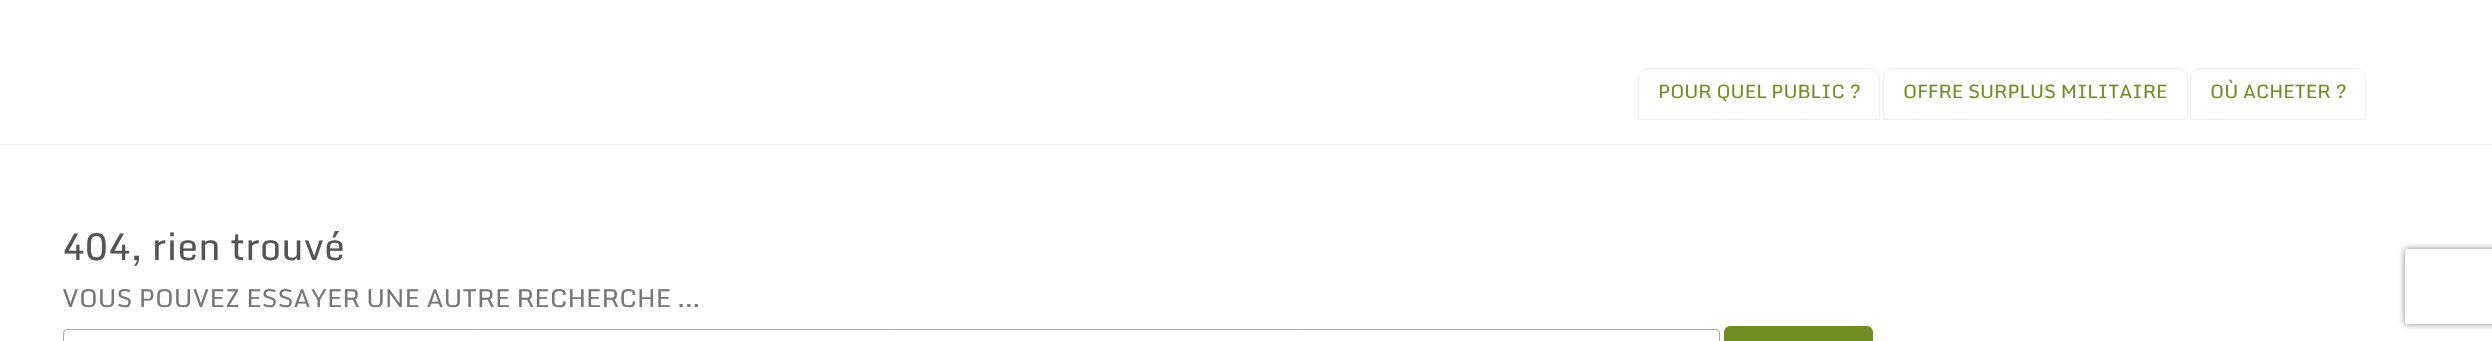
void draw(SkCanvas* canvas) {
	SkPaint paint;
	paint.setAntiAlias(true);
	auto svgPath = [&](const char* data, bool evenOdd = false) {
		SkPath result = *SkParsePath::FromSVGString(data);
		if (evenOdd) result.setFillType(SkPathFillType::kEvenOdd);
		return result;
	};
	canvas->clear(0xffffffff);
	paint.setColor(0xffeeeeee);
	canvas->drawRect(SkRect::MakeXYWH(0, 144, 2492, 1), paint);
	paint.setStroke(true);
	paint.setStrokeWidth(1);
	canvas->drawPath(svgPath("M1648 68.5H1870C1875 68.5 1879.5 73 1879.5 78V119.5H1638.5V78C1638.5 73 1643 68.5 1648 68.5Z"), paint);
	SkFont f1(fontMgr->matchFamilyStyle("Monda", SkFontStyle::Normal()), 18.75);
	f1.setSubpixel(true);
	paint.setStroke(false);
	paint.setColor(0xff708d23);
	canvas->drawString("POUR QUEL PUBLIC ?", 1658, 98, f1, paint);
	paint.setStroke(true);
	paint.setColor(0xffeeeeee);
	canvas->drawPath(svgPath("M1893 68.5H2178C2183 68.5 2187.5 73 2187.5 78V119.5H1883.5V78C1883.5 73 1888 68.5 1893 68.5Z"), paint);
	paint.setStroke(false);
	paint.setColor(0xff708d23);
	canvas->drawString("OFFRE SURPLUS MILITAIRE", 1903, 98, f1, paint);
	paint.setStroke(true);
	paint.setColor(0xffeeeeee);
	canvas->drawPath(svgPath("M2200 68.5H2356C2361 68.5 2365.5 73 2365.5 78V119.5H2190.5V78C2190.5 73 2195 68.5 2200 68.5Z"), paint);
	paint.setStroke(false);
	paint.setColor(0xff708d23);
	canvas->drawString("OÙ ACHETER ?", 2210, 98, f1, paint);
	SkFont f2(fontMgr->matchFamilyStyle("Monda", SkFontStyle::Normal()), 37.5);
	f2.setSubpixel(true);
	paint.setColor(0xff555555);
	canvas->drawString("404, rien trouvé", 62, 260, f2, paint);
	SkFont f3(fontMgr->matchFamilyStyle("Monda", SkFontStyle::Normal()), 25);
	f3.setSubpixel(true);
	paint.setColor(0xff777777);
	canvas->drawString("VOUS POUVEZ ESSAYER UNE AUTRE RECHERCHE ...", 62, 307, f3, paint);
	paint.setStroke(true);
	paint.setColor(0xffaaaaaa);
	canvas->drawRoundRect(SkRect::MakeXYWH(63.5, 329.5, 1656, 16), 3.5, 3.5, paint);
	paint.setStroke(false);
	paint.setColor(0xff708d23);
	canvas->drawRoundRect(SkRect::MakeXYWH(1724, 326, 149, 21), 6, 6, paint);
	canvas->save();
	canvas->clipPath(svgPath("M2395 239H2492V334H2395ZM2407.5 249H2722.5C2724 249 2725 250 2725 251.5V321.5C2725 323 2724 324 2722.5 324H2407.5C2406 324 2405 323 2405 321.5V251.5C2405 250 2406 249 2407.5 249Z", true), true);
	paint.setColor(0xff808080);
	paint.setMaskFilter(SkMaskFilter::MakeBlur(kNormal_SkBlurStyle, 3));
	canvas->drawRoundRect(SkRect::MakeXYWH(2405, 249, 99, 75), 2.5, 2.5, paint);
	paint.setMaskFilter(nullptr);
	canvas->restore();
}
